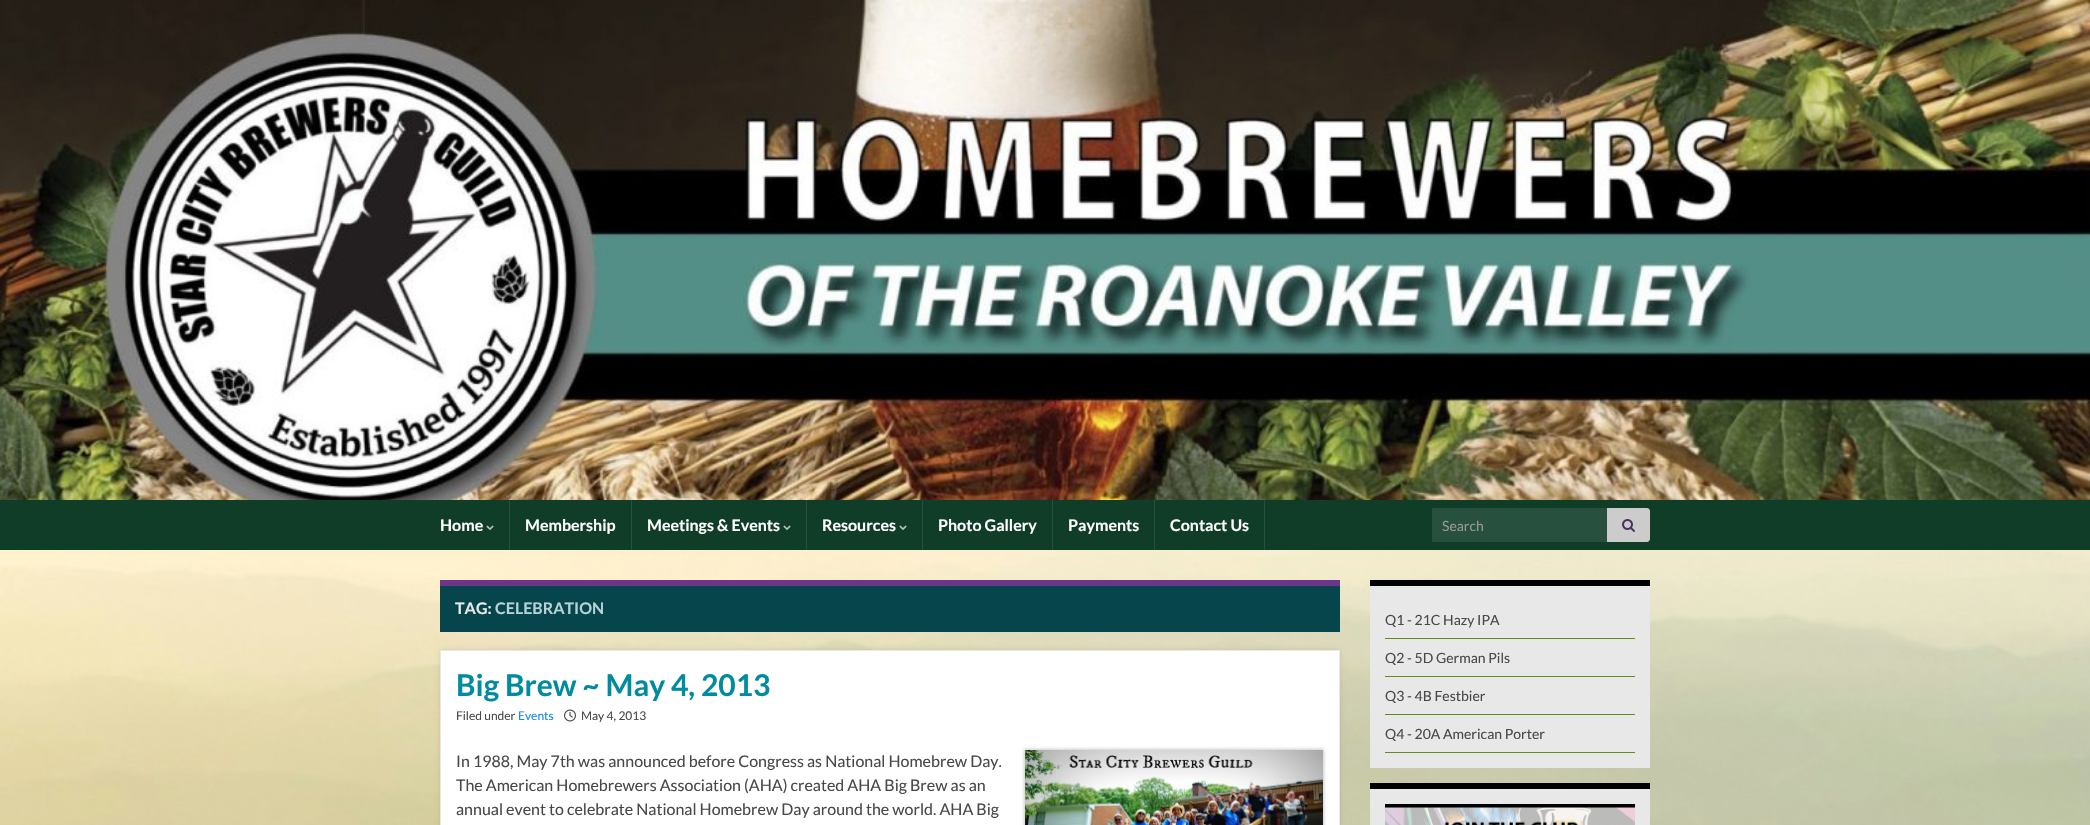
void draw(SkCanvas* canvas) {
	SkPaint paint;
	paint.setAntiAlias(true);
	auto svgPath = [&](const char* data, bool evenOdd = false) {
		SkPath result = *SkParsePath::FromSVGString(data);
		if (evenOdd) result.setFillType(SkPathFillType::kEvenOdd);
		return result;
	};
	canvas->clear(0xffffffff);
	canvas->drawImageRect(SkImages::DeferredFromEncodedData(SkData::MakeFromFileName("img1.png")), SkRect::MakeXYWH(0, 550, 2090, 275), SkSamplingOptions());
	canvas->drawImageRect(SkImages::DeferredFromEncodedData(SkData::MakeFromFileName("img2.png")), SkRect::MakeXYWH(0, 0, 2090, 500), SkSamplingOptions());
	paint.setColor(0xff0f3d28);
	canvas->drawRect(SkRect::MakeXYWH(0, 500, 2090, 50), paint);
	paint.setColor(0xff27503e);
	canvas->drawRect(SkRect::MakeXYWH(509, 500, 1, 50), paint);
	SkFont f1(fontMgr->matchFamilyStyle("Lato", SkFontStyle::Bold()), 16);
	f1.setSubpixel(true);
	paint.setColor(0xffffffff);
	canvas->drawString("Home", 440, 531, f1, paint);
	canvas->drawImageRect(SkImages::DeferredFromEncodedData(SkData::MakeFromFileName("img3.png")), SkRect::MakeXYWH(486, 525, 8, 5), SkSamplingOptions());
	paint.setColor(0xff27503e);
	canvas->drawRect(SkRect::MakeXYWH(631, 500, 1, 50), paint);
	paint.setColor(0xffffffff);
	canvas->drawString("Membership", 525, 531, f1, paint);
	paint.setColor(0xff27503e);
	canvas->drawRect(SkRect::MakeXYWH(806, 500, 1, 50), paint);
	paint.setColor(0xffffffff);
	canvas->drawString("Meetings & Events", 647, 531, f1, paint);
	canvas->drawImageRect(SkImages::DeferredFromEncodedData(SkData::MakeFromFileName("img3.png")), SkRect::MakeXYWH(783, 525, 8, 5), SkSamplingOptions());
	paint.setColor(0xff27503e);
	canvas->drawRect(SkRect::MakeXYWH(922, 500, 1, 50), paint);
	paint.setColor(0xffffffff);
	canvas->drawString("Resources", 822, 531, f1, paint);
	canvas->drawImageRect(SkImages::DeferredFromEncodedData(SkData::MakeFromFileName("img3.png")), SkRect::MakeXYWH(899, 525, 8, 5), SkSamplingOptions());
	paint.setColor(0xff27503e);
	canvas->drawRect(SkRect::MakeXYWH(1052, 500, 1, 50), paint);
	paint.setColor(0xffffffff);
	canvas->drawString("Photo Gallery", 938, 531, f1, paint);
	paint.setColor(0xff27503e);
	canvas->drawRect(SkRect::MakeXYWH(1154, 500, 1, 50), paint);
	paint.setColor(0xffffffff);
	canvas->drawString("Payments", 1068, 531, f1, paint);
	paint.setColor(0xff27503e);
	canvas->drawRect(SkRect::MakeXYWH(1264, 500, 1, 50), paint);
	paint.setColor(0xffffffff);
	canvas->drawString("Contact Us", 1170, 531, f1, paint);
	paint.setColor(0xff27503e);
	canvas->drawRect(SkRect::MakeXYWH(1432, 508, 175, 34), paint);
	SkFont f2(fontMgr->matchFamilyStyle("Lato", SkFontStyle::Normal()), 14);
	f2.setSubpixel(true);
	paint.setColor(0xff999999);
	canvas->drawString("Search", 1442, 531, f2, paint);
	paint.setColor(0xffcccccc);
	canvas->drawPath(svgPath("M1607 508H1647C1648.5 508 1650 509.5 1650 511V539C1650 540.5 1648.5 542 1647 542H1607Z"), paint);
	canvas->drawImageRect(SkImages::DeferredFromEncodedData(SkData::MakeFromFileName("img4.png")), SkRect::MakeXYWH(1622, 519, 13, 13), SkSamplingOptions());
	paint.setColor(0xff06454c);
	canvas->drawRect(SkRect::MakeXYWH(440, 586, 900, 46), paint);
	paint.setColor(0xff6b3589);
	canvas->drawRect(SkRect::MakeXYWH(440, 580, 900, 6), paint);
	paint.setColor(0xffeae9e9);
	canvas->drawString("TAG:", 455, 614, f1, paint);
	paint.setColor(0xffb6d2d5);
	canvas->drawString("CELEBRATION", 495, 614, f1, paint);
	paint.setColor(0x1a000000);
	paint.setMaskFilter(SkMaskFilter::MakeBlur(kNormal_SkBlurStyle, 2.5));
	canvas->drawRect(SkRect::MakeXYWH(440, 650, 900, 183), paint);
	paint.setMaskFilter(nullptr);
	paint.setColor(0xffffffff);
	canvas->drawRect(SkRect::MakeXYWH(440.5, 650.5, 899, 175), paint);
	paint.setStroke(true);
	paint.setStrokeWidth(1);
	paint.setColor(0xffe9e8e3);
	canvas->drawRect(SkRect::MakeXYWH(440.5, 650.5, 899, 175), paint);
	SkFont f3(fontMgr->matchFamilyStyle("Lato", SkFontStyle::Bold()), 30);
	f3.setSubpixel(true);
	paint.setStroke(false);
	paint.setColor(0xff008c9e);
	canvas->drawString("Big Brew ~ May 4, 2013", 456, 696, f3, paint);
	SkFont f4(fontMgr->matchFamilyStyle("Lato", SkFontStyle::Normal()), 12);
	f4.setSubpixel(true);
	paint.setColor(0xff4a474b);
	canvas->drawString("Filed under", 456, 720, f4, paint);
	paint.setColor(0xff1688e5);
	canvas->drawString("Events", 518, 720, f4, paint);
	canvas->drawImageRect(SkImages::DeferredFromEncodedData(SkData::MakeFromFileName("img5.png")), SkRect::MakeXYWH(564, 709, 12, 13), SkSamplingOptions());
	paint.setColor(0xff4a474b);
	canvas->drawString("May 4, 2013", 581, 720, f4, paint);
	SkFont f5(fontMgr->matchFamilyStyle("Lato", SkFontStyle::Normal()), 16);
	f5.setSubpixel(true);
	canvas->drawString("In 1988, May 7th was announced before Congress as National Homebrew Day.", 456, 767, f5, paint);
	canvas->drawString("The American Homebrewers Association (AHA) created AHA Big Brew as an", 456, 791, f5, paint);
	canvas->drawString("annual event to celebrate National Homebrew Day around the world. AHA Big", 456, 815, f5, paint);
	paint.setColor(0x33000000);
	paint.setMaskFilter(SkMaskFilter::MakeBlur(kNormal_SkBlurStyle, 1.5));
	canvas->drawRect(SkRect::MakeXYWH(1024, 749, 300, 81), paint);
	paint.setMaskFilter(nullptr);
	canvas->drawImageRect(SkImages::DeferredFromEncodedData(SkData::MakeFromFileName("img6.png")), SkRect::MakeXYWH(1025, 750, 298, 75), SkSamplingOptions());
	paint.setColor(0xffe8e8e8);
	canvas->drawRect(SkRect::MakeXYWH(1370, 586, 280, 182), paint);
	paint.setColor(0xff000000);
	canvas->drawRect(SkRect::MakeXYWH(1370, 580, 280, 6), paint);
	paint.setColor(0xff5f8e1d);
	canvas->drawRect(SkRect::MakeXYWH(1385, 638, 250, 1), paint);
	paint.setColor(0xff4a474b);
	canvas->drawString("Q1 - 21C Hazy IPA", 1385, 625, f2, paint);
	paint.setColor(0xff5f8e1d);
	canvas->drawRect(SkRect::MakeXYWH(1385, 676, 250, 1), paint);
	paint.setColor(0xff4a474b);
	canvas->drawString("Q2 - 5D German Pils", 1385, 663, f2, paint);
	paint.setColor(0xff5f8e1d);
	canvas->drawRect(SkRect::MakeXYWH(1385, 714, 250, 1), paint);
	paint.setColor(0xff4a474b);
	canvas->drawString("Q3 - 4B Festbier", 1385, 701, f2, paint);
	paint.setColor(0xff5f8e1d);
	canvas->drawRect(SkRect::MakeXYWH(1385, 752, 250, 1), paint);
	paint.setColor(0xff4a474b);
	canvas->drawString("Q4 - 20A American Porter", 1385, 739, f2, paint);
	paint.setColor(0xffe8e8e8);
	canvas->drawRect(SkRect::MakeXYWH(1370, 789, 280, 36), paint);
	paint.setColor(0xff000000);
	canvas->drawRect(SkRect::MakeXYWH(1370, 783, 280, 6), paint);
	canvas->drawImageRect(SkImages::DeferredFromEncodedData(SkData::MakeFromFileName("img7.png")), SkRect::MakeXYWH(1385, 804, 250, 21), SkSamplingOptions());
}
